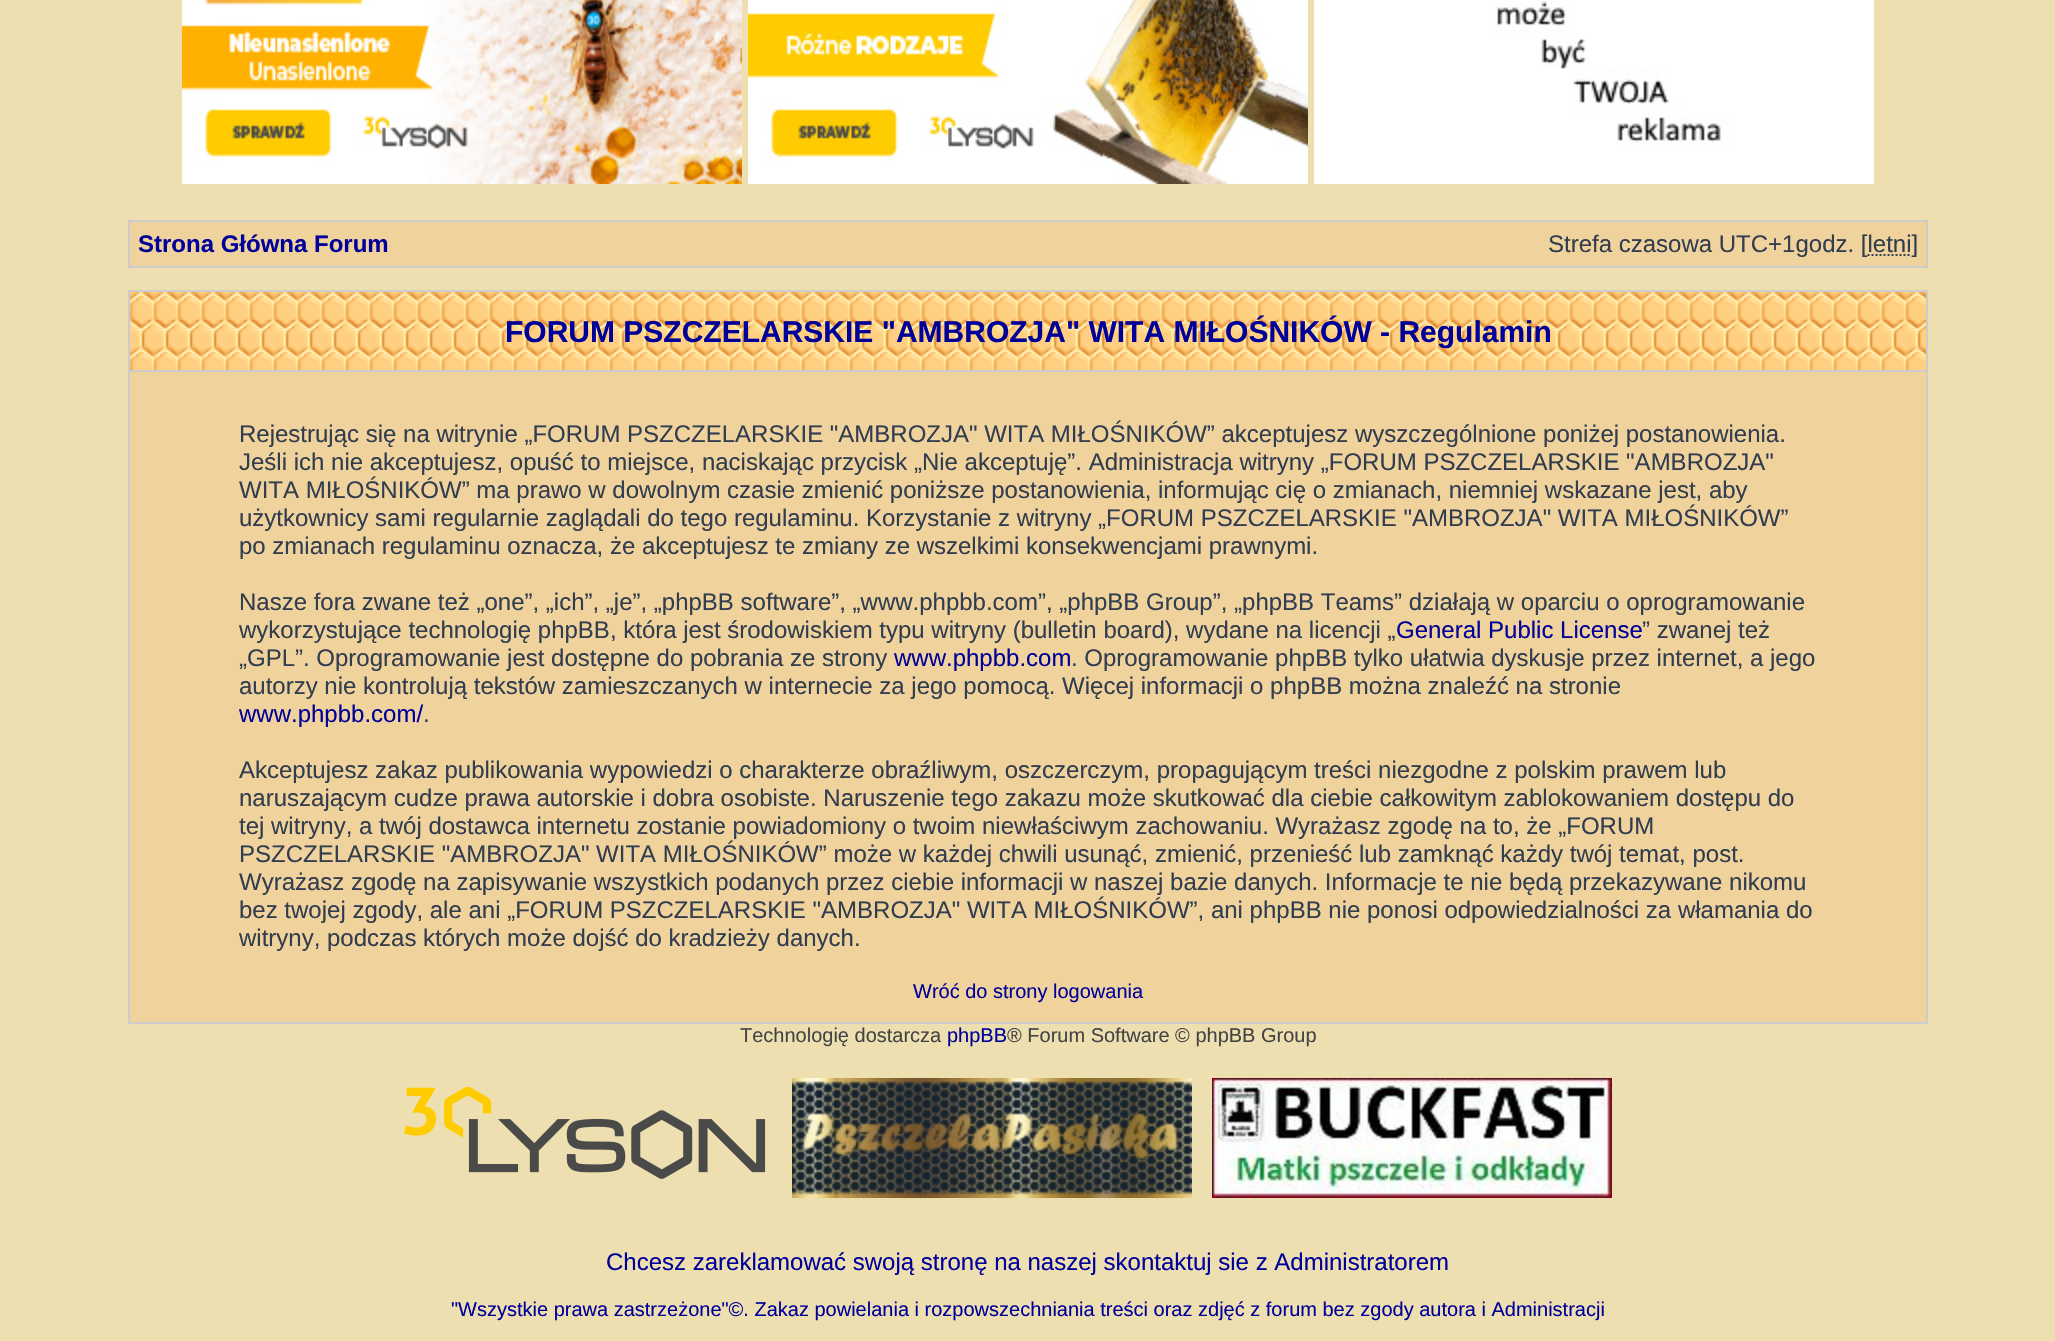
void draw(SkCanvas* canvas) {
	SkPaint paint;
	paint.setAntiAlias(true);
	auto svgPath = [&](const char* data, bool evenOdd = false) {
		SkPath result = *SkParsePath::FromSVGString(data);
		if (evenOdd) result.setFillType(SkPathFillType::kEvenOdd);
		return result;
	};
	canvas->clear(0xffeedfb1);
	canvas->drawImageRect(SkImages::DeferredFromEncodedData(SkData::MakeFromFileName("img1.png")), SkRect::MakeXYWH(182, 0, 560, 184), SkSamplingOptions());
	canvas->drawImageRect(SkImages::DeferredFromEncodedData(SkData::MakeFromFileName("img2.png")), SkRect::MakeXYWH(748, 0, 560, 184), SkSamplingOptions());
	canvas->drawImageRect(SkImages::DeferredFromEncodedData(SkData::MakeFromFileName("img3.png")), SkRect::MakeXYWH(1314, 0, 560, 184), SkSamplingOptions());
	paint.setColor(0xffcccccc);
	canvas->drawRect(SkRect::MakeXYWH(128, 220, 1800, 48), paint);
	paint.setColor(0xfff0d39c);
	canvas->drawRect(SkRect::MakeXYWH(130, 222, 1796, 44), paint);
	SkFont f1(fontMgr->matchFamilyStyle("Liberation Sans", SkFontStyle::Bold()), 24);
	f1.setSubpixel(true);
	paint.setColor(0xff000099);
	canvas->drawString("Strona Główna Forum", 138, 252, f1, paint);
	SkFont f2(fontMgr->matchFamilyStyle("Liberation Sans", SkFontStyle::Normal()), 24);
	f2.setSubpixel(true);
	paint.setColor(0xff323d4f);
	canvas->drawString("Strefa czasowa UTC+1godz. [letni]", 1548, 252, f2, paint);
	paint.setStroke(true);
	paint.setStrokeWidth(2);
	paint.setPathEffect(SkDashPathEffect::Make({{2, 2}}, 0));
	canvas->drawPath(svgPath("M1867.5 255H1911.5"), paint);
	paint.setPathEffect(nullptr);
	paint.setStroke(false);
	paint.setColor(0xffcccccc);
	canvas->drawRect(SkRect::MakeXYWH(128, 290, 1800, 734), paint);
	canvas->drawImageRect(SkImages::DeferredFromEncodedData(SkData::MakeFromFileName("img4.png")), SkRect::MakeXYWH(130, 292, 1796, 78), SkSamplingOptions());
	SkFont f3(fontMgr->matchFamilyStyle("Liberation Sans", SkFontStyle::Bold()), 30);
	f3.setSubpixel(true);
	paint.setColor(0xff000099);
	canvas->drawString("FORUM PSZCZELARSKIE \"AMBROZJA\" WITA MIŁOŚNIKÓW - Regulamin", 505, 342, f3, paint);
	paint.setColor(0xfff0d39c);
	canvas->drawRect(SkRect::MakeXYWH(130, 372, 1796, 650), paint);
	paint.setColor(0xff323d4f);
	canvas->drawString("Rejestrując się na witrynie „FORUM PSZCZELARSKIE \"AMBROZJA\" WITA MIŁOŚNIKÓW” akceptujesz wyszczególnione poniżej postanowienia.", 239, 442, f2, paint);
	canvas->drawString("Jeśli ich nie akceptujesz, opuść to miejsce, naciskając przycisk „Nie akceptuję”. Administracja witryny „FORUM PSZCZELARSKIE \"AMBROZJA\"", 239, 470, f2, paint);
	canvas->drawString("WITA MIŁOŚNIKÓW” ma prawo w dowolnym czasie zmienić poniższe postanowienia, informując cię o zmianach, niemniej wskazane jest, aby", 239, 498, f2, paint);
	canvas->drawString("użytkownicy sami regularnie zaglądali do tego regulaminu. Korzystanie z witryny „FORUM PSZCZELARSKIE \"AMBROZJA\" WITA MIŁOŚNIKÓW”", 239, 526, f2, paint);
	canvas->drawString("po zmianach regulaminu oznacza, że akceptujesz te zmiany ze wszelkimi konsekwencjami prawnymi.", 239, 554, f2, paint);
	canvas->drawString("Nasze fora zwane też „one”, „ich”, „je”, „phpBB software”, „www.phpbb.com”, „phpBB Group”, „phpBB Teams” działają w oparciu o oprogramowanie", 239, 610, f2, paint);
	canvas->drawString("wykorzystujące technologię phpBB, która jest środowiskiem typu witryny (bulletin board), wydane na licencji „", 239, 638, f2, paint);
	paint.setColor(0xff000099);
	canvas->drawString("General Public License", 1396, 638, f2, paint);
	paint.setColor(0xff323d4f);
	canvas->drawString("” zwanej też", 1642, 638, f2, paint);
	canvas->drawString("„GPL”. Oprogramowanie jest dostępne do pobrania ze strony", 239, 666, f2, paint);
	paint.setColor(0xff000099);
	canvas->drawString("www.phpbb.com", 894, 666, f2, paint);
	paint.setColor(0xff323d4f);
	canvas->drawString(". Oprogramowanie phpBB tylko ułatwia dyskusje przez internet, a jego", 1071, 666, f2, paint);
	canvas->drawString("autorzy nie kontrolują tekstów zamieszczanych w internecie za jego pomocą. Więcej informacji o phpBB można znaleźć na stronie", 239, 694, f2, paint);
	paint.setColor(0xff000099);
	canvas->drawString("www.phpbb.com/", 239, 722, f2, paint);
	paint.setColor(0xff323d4f);
	canvas->drawString(".", 423, 722, f2, paint);
	canvas->drawString("Akceptujesz zakaz publikowania wypowiedzi o charakterze obraźliwym, oszczerczym, propagującym treści niezgodne z polskim prawem lub", 239, 778, f2, paint);
	canvas->drawString("naruszającym cudze prawa autorskie i dobra osobiste. Naruszenie tego zakazu może skutkować dla ciebie całkowitym zablokowaniem dostępu do", 239, 806, f2, paint);
	canvas->drawString("tej witryny, a twój dostawca internetu zostanie powiadomiony o twoim niewłaściwym zachowaniu. Wyrażasz zgodę na to, że „FORUM", 239, 834, f2, paint);
	canvas->drawString("PSZCZELARSKIE \"AMBROZJA\" WITA MIŁOŚNIKÓW” może w każdej chwili usunąć, zmienić, przenieść lub zamknąć każdy twój temat, post.", 239, 862, f2, paint);
	canvas->drawString("Wyrażasz zgodę na zapisywanie wszystkich podanych przez ciebie informacji w naszej bazie danych. Informacje te nie będą przekazywane nikomu", 239, 890, f2, paint);
	canvas->drawString("bez twojej zgody, ale ani „FORUM PSZCZELARSKIE \"AMBROZJA\" WITA MIŁOŚNIKÓW”, ani phpBB nie ponosi odpowiedzialności za włamania do", 239, 918, f2, paint);
	canvas->drawString("witryny, podczas których może dojść do kradzieży danych.", 239, 946, f2, paint);
	SkFont f4(fontMgr->matchFamilyStyle("Liberation Sans", SkFontStyle::Normal()), 20);
	f4.setSubpixel(true);
	paint.setColor(0xff000099);
	canvas->drawString("Wróć do strony logowania", 913, 998, f4, paint);
	paint.setColor(0xff444444);
	canvas->drawString("Technologię dostarcza", 740, 1042, f4, paint);
	paint.setColor(0xff000099);
	canvas->drawString("phpBB", 947, 1042, f4, paint);
	paint.setColor(0xff444444);
	canvas->drawString("® Forum Software © phpBB Group", 1007, 1042, f4, paint);
	canvas->drawImageRect(SkImages::DeferredFromEncodedData(SkData::MakeFromFileName("img5.png")), SkRect::MakeXYWH(404, 1086, 362, 93), SkSamplingOptions());
	canvas->drawImageRect(SkImages::DeferredFromEncodedData(SkData::MakeFromFileName("img6.png")), SkRect::MakeXYWH(792, 1078, 400, 120), SkSamplingOptions());
	canvas->drawImageRect(SkImages::DeferredFromEncodedData(SkData::MakeFromFileName("img7.png")), SkRect::MakeXYWH(1212, 1078, 400, 120), SkSamplingOptions());
	paint.setColor(0xff000099);
	canvas->drawString("Chcesz zareklamować swoją stronę na naszej skontaktuj sie z Administratorem", 606, 1270, f2, paint);
	canvas->drawString("\"Wszystkie prawa zastrzeżone\"©. Zakaz powielania i rozpowszechniania treści oraz zdjęć z forum bez zgody autora i Administracji", 451, 1316, f4, paint);
}
